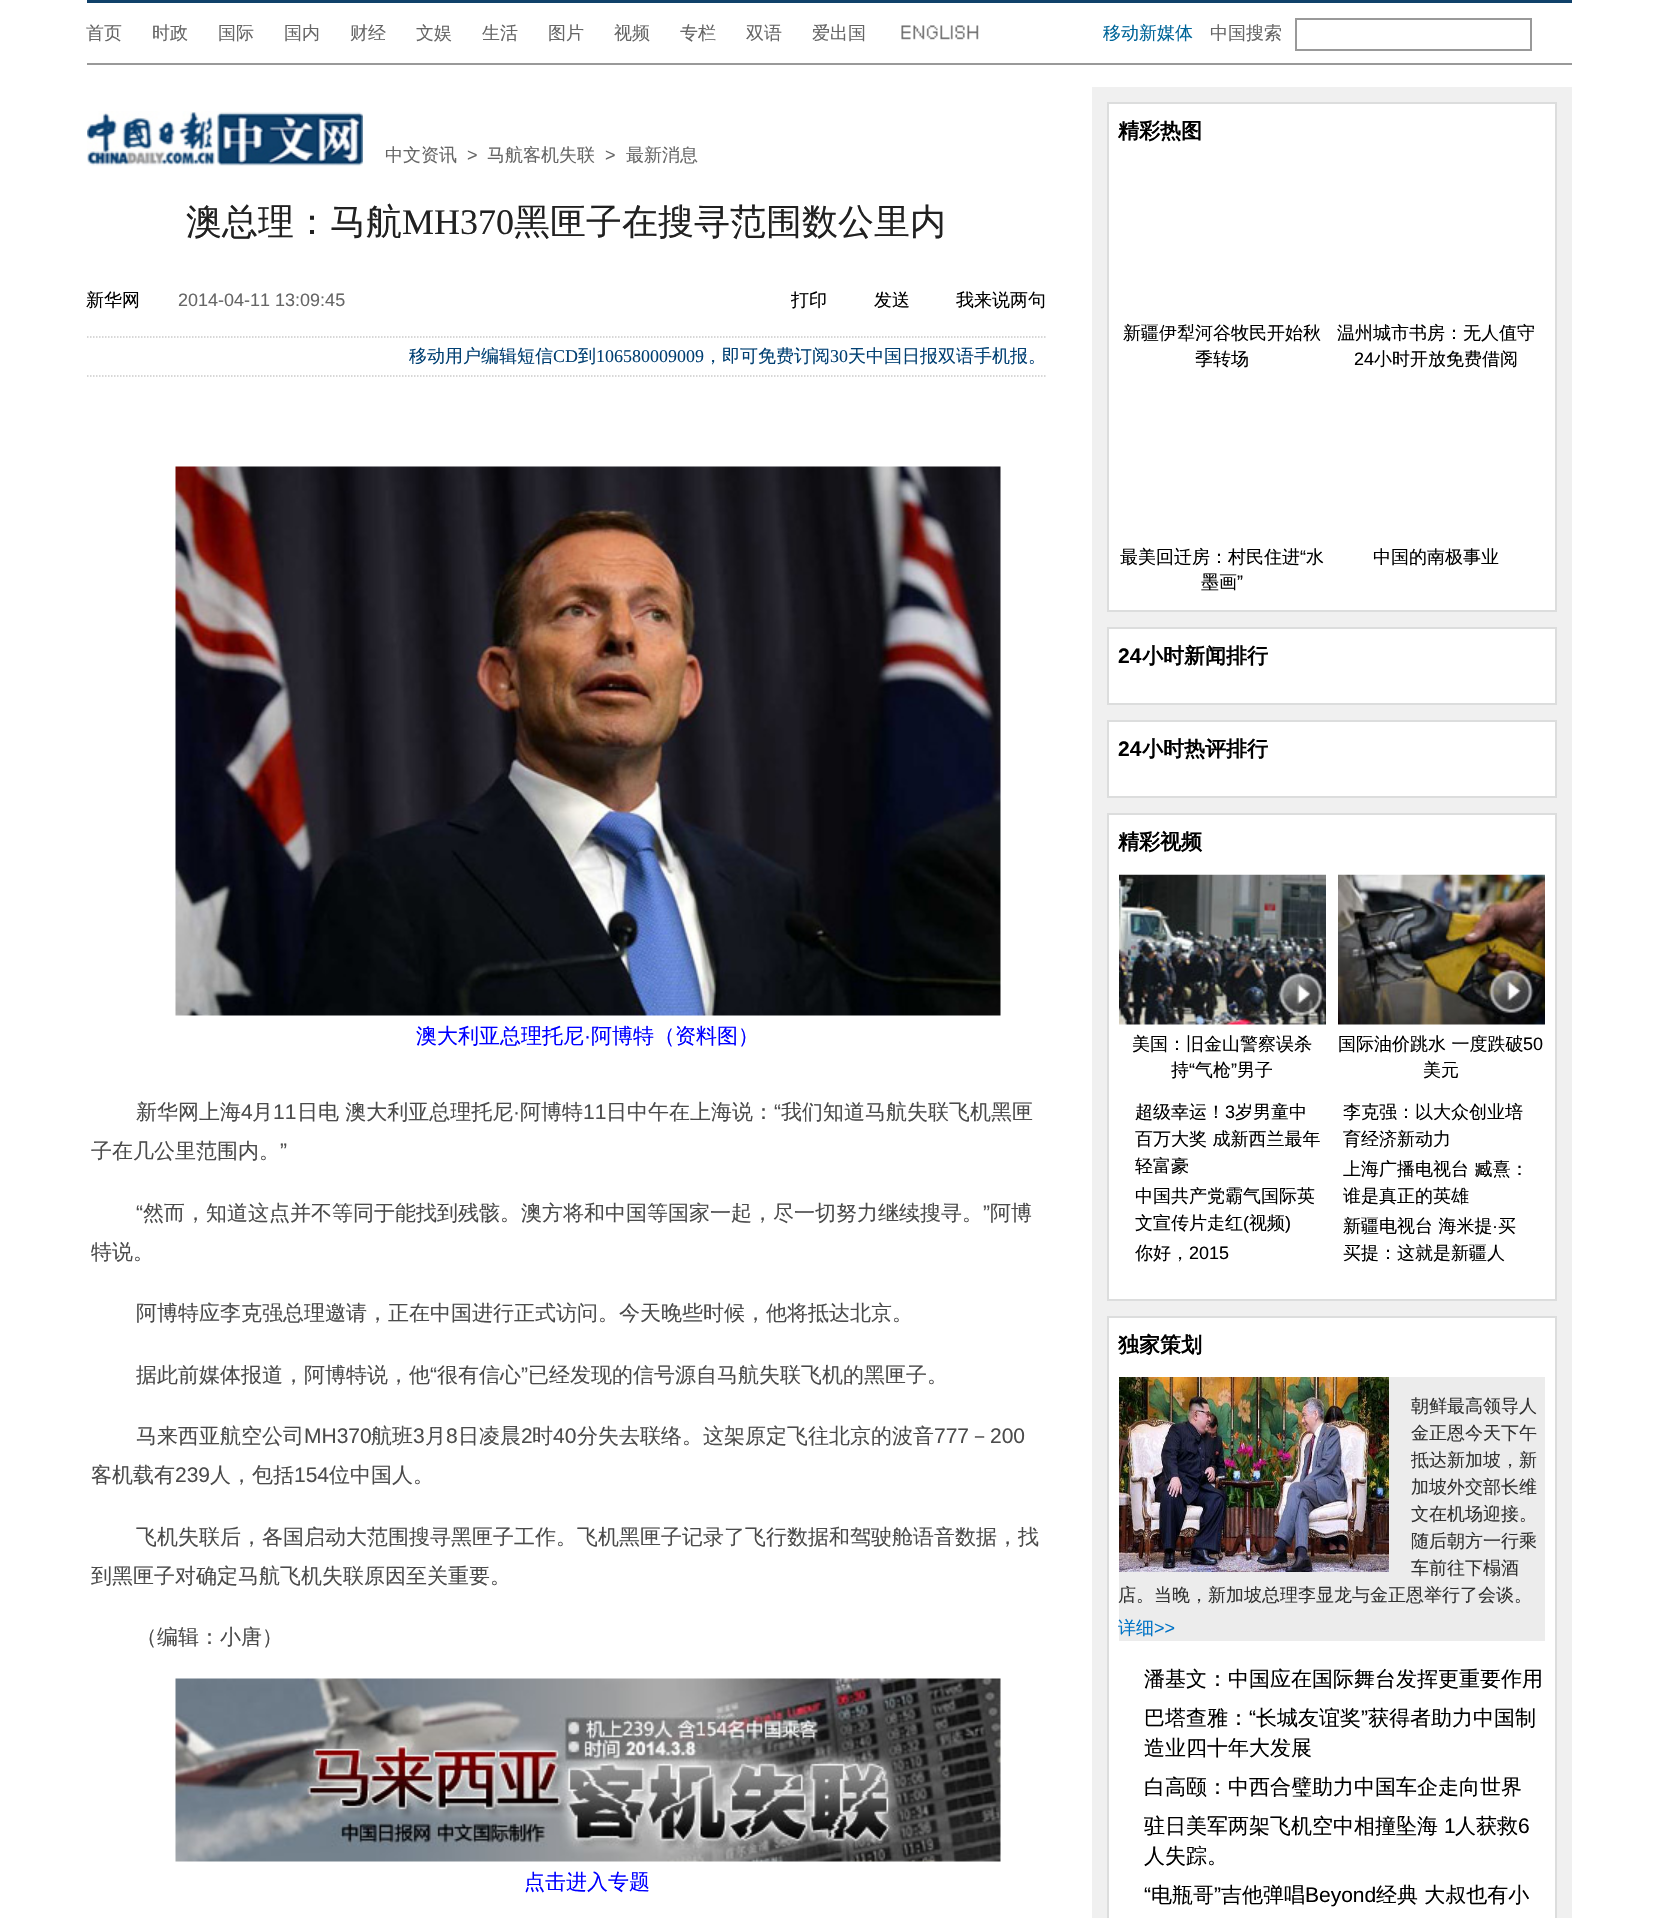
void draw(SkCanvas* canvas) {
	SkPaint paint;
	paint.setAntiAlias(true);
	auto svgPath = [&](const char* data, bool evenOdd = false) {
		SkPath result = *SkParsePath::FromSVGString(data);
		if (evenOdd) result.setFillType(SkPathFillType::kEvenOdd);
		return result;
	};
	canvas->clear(0xffffffff);
	paint.setColor(0xff10416a);
	canvas->drawRect(SkRect::MakeXYWH(87, 0, 1485, 3), paint);
	paint.setColor(0xff999999);
	canvas->drawRect(SkRect::MakeXYWH(87, 63, 1485, 2), paint);
	SkFont f1(fontMgr->matchFamilyStyle("WenQuanYi Zen Hei", SkFontStyle(500, SkFontStyle::kNormal_Width, SkFontStyle::kUpright_Slant)), 18);
	f1.setSubpixel(true);
	paint.setColor(0xff666666);
	canvas->drawString("首页", 86, 39, f1, paint);
	canvas->drawString("时政", 152, 39, f1, paint);
	canvas->drawString("国际", 218, 39, f1, paint);
	canvas->drawString("国内", 284, 39, f1, paint);
	canvas->drawString("财经", 350, 39, f1, paint);
	canvas->drawString("文娱", 416, 39, f1, paint);
	canvas->drawString("生活", 482, 39, f1, paint);
	canvas->drawString("图片", 548, 39, f1, paint);
	canvas->drawString("视频", 614, 39, f1, paint);
	canvas->drawString("专栏", 680, 39, f1, paint);
	canvas->drawString("双语", 746, 39, f1, paint);
	canvas->drawString("爱出国", 812, 39, f1, paint);
	canvas->drawImageRect(SkImages::DeferredFromEncodedData(SkData::MakeFromFileName("img1.png")), SkRect::MakeXYWH(901, 25, 78, 15), SkSamplingOptions());
	paint.setColor(0xff006599);
	canvas->drawString("移动新媒体", 1103, 39, f1, paint);
	paint.setColor(0xff666666);
	canvas->drawString("中国搜索", 1210, 39, f1, paint);
	paint.setStroke(true);
	paint.setStrokeWidth(2);
	paint.setColor(0xff999999);
	canvas->drawRect(SkRect::MakeXYWH(1296, 19, 235, 31), paint);
	canvas->drawImageRect(SkImages::DeferredFromEncodedData(SkData::MakeFromFileName("img2.png")), SkRect::MakeXYWH(87, 111, 276, 55), SkSamplingOptions());
	paint.setStroke(false);
	paint.setColor(0xff666666);
	canvas->drawString("中文资讯", 385, 161, f1, paint);
	SkFont f2(fontMgr->matchFamilyStyle("Liberation Sans", SkFontStyle::Normal()), 18);
	f2.setSubpixel(true);
	canvas->drawString(">", 467, 161, f2, paint);
	canvas->drawString("马航客机失联", 487, 161, f1, paint);
	canvas->drawString(">", 605, 161, f2, paint);
	canvas->drawString("最新消息", 626, 161, f1, paint);
	SkFont f3(fontMgr->matchFamilyStyle("WenQuanYi Zen Hei", SkFontStyle(500, SkFontStyle::kNormal_Width, SkFontStyle::kUpright_Slant)), 36);
	f3.setSubpixel(true);
	paint.setColor(0xff212121);
	canvas->drawString("澳总理：马航", 186, 234, f3, paint);
	SkFont f4(fontMgr->matchFamilyStyle("Liberation Serif", SkFontStyle::Normal()), 36);
	f4.setSubpixel(true);
	canvas->drawString("MH370", 402, 234, f4, paint);
	canvas->drawString("黑匣子在搜寻范围数公里内", 514, 234, f3, paint);
	paint.setStroke(true);
	paint.setStrokeWidth(1.5);
	paint.setColor(0xffcccccc);
	paint.setPathEffect(SkDashPathEffect::Make({{1.5f, 1.5f}}, 0));
	canvas->drawPath(svgPath("M87 337H1047"), paint);
	paint.setPathEffect(nullptr);
	paint.setStroke(false);
	paint.setColor(0xff000000);
	canvas->drawString("新华网", 86, 306, f1, paint);
	paint.setColor(0xff666666);
	canvas->drawString("2014-04-11 13:09:45", 178, 306, f2, paint);
	paint.setColor(0xff000000);
	canvas->drawString("打印", 791, 306, f1, paint);
	canvas->drawString("发送", 874, 306, f1, paint);
	canvas->drawString("我来说两句", 956, 306, f1, paint);
	paint.setStroke(true);
	paint.setColor(0xffcccccc);
	paint.setPathEffect(SkDashPathEffect::Make({{1.5f, 1.5f}}, 0));
	canvas->drawPath(svgPath("M87 376H1047"), paint);
	paint.setPathEffect(nullptr);
	paint.setStroke(false);
	paint.setColor(0xff014073);
	canvas->drawString("移动用户编辑短信", 409, 362, f1, paint);
	SkFont f5(fontMgr->matchFamilyStyle("Liberation Serif", SkFontStyle::Normal()), 18);
	f5.setSubpixel(true);
	canvas->drawString("CD", 553, 362, f5, paint);
	canvas->drawString("到", 578, 362, f1, paint);
	canvas->drawString("106580009009", 596, 362, f5, paint);
	canvas->drawString("，即可免费订阅", 704, 362, f1, paint);
	canvas->drawString("30", 830, 362, f5, paint);
	canvas->drawString("天中国日报双语手机报。", 848, 362, f1, paint);
	canvas->drawImageRect(SkImages::DeferredFromEncodedData(SkData::MakeFromFileName("img3.png")), SkRect::MakeXYWH(175, 466, 826, 550), SkSamplingOptions());
	SkFont f6(fontMgr->matchFamilyStyle("WenQuanYi Zen Hei", SkFontStyle(500, SkFontStyle::kNormal_Width, SkFontStyle::kUpright_Slant)), 21);
	f6.setSubpixel(true);
	paint.setColor(0xff0000ff);
	canvas->drawString("澳大利亚总理托尼", 416, 1043, f6, paint);
	SkFont f7(fontMgr->matchFamilyStyle("Liberation Sans", SkFontStyle::Normal()), 21);
	f7.setSubpixel(true);
	canvas->drawString("·", 584, 1043, f7, paint);
	canvas->drawString("阿博特（资料图）", 591, 1043, f6, paint);
	paint.setColor(0xff4b4b4b);
	canvas->drawString("新华网上海", 136, 1119, f6, paint);
	canvas->drawString("4", 241, 1119, f7, paint);
	canvas->drawString("月", 252, 1119, f6, paint);
	canvas->drawString("11", 273, 1119, f7, paint);
	canvas->drawString("日电 澳大利亚总理托尼", 297, 1119, f6, paint);
	canvas->drawString("阿博特", 520, 1119, f6, paint);
	canvas->drawString("11", 583, 1119, f7, paint);
	canvas->drawString("日中午在上海说：", 606, 1119, f6, paint);
	canvas->drawString("“", 774, 1119, f7, paint);
	canvas->drawString("我们知道马航失联飞机黑匣", 781, 1119, f6, paint);
	canvas->drawString("·", 513, 1119, f7, paint);
	canvas->drawString("子在几公里范围内。", 91, 1158, f6, paint);
	canvas->drawString("”", 280, 1158, f7, paint);
	canvas->drawString("“", 136, 1220, f7, paint);
	canvas->drawString("然而，知道这点并不等同于能找到残骸。澳方将和中国等国家一起，尽一切努力继续搜寻。", 143, 1220, f6, paint);
	canvas->drawString("”", 983, 1220, f7, paint);
	canvas->drawString("阿博", 990, 1220, f6, paint);
	canvas->drawString("特说。", 91, 1259, f6, paint);
	canvas->drawString("阿博特应李克强总理邀请，正在中国进行正式访问。今天晚些时候，他将抵达北京。", 136, 1320, f6, paint);
	canvas->drawString("据此前媒体报道，阿博特说，他", 136, 1382, f6, paint);
	canvas->drawString("“", 430, 1382, f7, paint);
	canvas->drawString("很有信心", 437, 1382, f6, paint);
	canvas->drawString("”", 521, 1382, f7, paint);
	canvas->drawString("已经发现的信号源自马航失联飞机的黑匣子。", 528, 1382, f6, paint);
	canvas->drawString("马来西亚航空公司", 136, 1443, f6, paint);
	canvas->drawString("MH370", 304, 1443, f7, paint);
	canvas->drawString("航班", 371, 1443, f6, paint);
	canvas->drawString("3", 413, 1443, f7, paint);
	canvas->drawString("月", 425, 1443, f6, paint);
	canvas->drawString("8", 446, 1443, f7, paint);
	canvas->drawString("日凌晨", 458, 1443, f6, paint);
	canvas->drawString("2", 521, 1443, f7, paint);
	canvas->drawString("时", 532, 1443, f6, paint);
	canvas->drawString("40", 553, 1443, f7, paint);
	canvas->drawString("分失去联络。这架原定飞往北京的波音", 577, 1443, f6, paint);
	canvas->drawString("777", 934, 1443, f7, paint);
	canvas->drawString("－", 969, 1443, f6, paint);
	canvas->drawString("200", 990, 1443, f7, paint);
	canvas->drawString("客机载有", 91, 1482, f6, paint);
	canvas->drawString("239", 175, 1482, f7, paint);
	canvas->drawString("人，包括", 210, 1482, f6, paint);
	canvas->drawString("154", 294, 1482, f7, paint);
	canvas->drawString("位中国人。", 329, 1482, f6, paint);
	canvas->drawString("飞机失联后，各国启动大范围搜寻黑匣子工作。飞机黑匣子记录了飞行数据和驾驶舱语音数据，找", 136, 1544, f6, paint);
	canvas->drawString("到黑匣子对确定马航飞机失联原因至关重要。", 91, 1583, f6, paint);
	canvas->drawString("（编辑：小唐）", 136, 1644, f6, paint);
	canvas->drawImageRect(SkImages::DeferredFromEncodedData(SkData::MakeFromFileName("img4.png")), SkRect::MakeXYWH(175, 1678, 826, 184), SkSamplingOptions());
	paint.setColor(0xff0000ff);
	canvas->drawString("点击进入专题", 524, 1889, f6, paint);
	paint.setColor(0xfff0f0f0);
	canvas->drawRect(SkRect::MakeXYWH(1092, 87, 480, 1831), paint);
	paint.setColor(0xffffffff);
	canvas->drawRect(SkRect::MakeXYWH(1108, 103, 448, 508), paint);
	paint.setStroke(true);
	paint.setStrokeWidth(2);
	paint.setColor(0xffdcdddd);
	canvas->drawRect(SkRect::MakeXYWH(1108, 103, 448, 508), paint);
	SkFont f8(fontMgr->matchFamilyStyle("WenQuanYi Zen Hei", SkFontStyle::Bold()), 21);
	f8.setSubpixel(true);
	paint.setStroke(false);
	paint.setColor(0xff000000);
	canvas->drawString("精彩热图", 1118, 138, f8, paint);
	canvas->drawString("新疆伊犁河谷牧民开始秋", 1123, 339, f1, paint);
	canvas->drawString("季转场", 1195, 365, f1, paint);
	canvas->drawString("温州城市书房：无人值守", 1337, 339, f1, paint);
	canvas->drawString("24", 1354, 365, f2, paint);
	canvas->drawString("小时开放免费借阅", 1374, 365, f1, paint);
	canvas->drawString("最美回迁房：村民住进", 1120, 563, f1, paint);
	canvas->drawString("“", 1300, 563, f2, paint);
	canvas->drawString("水", 1306, 563, f1, paint);
	canvas->drawString("墨画", 1201, 588, f1, paint);
	canvas->drawString("”", 1237, 588, f2, paint);
	canvas->drawString("中国的南极事业", 1373, 563, f1, paint);
	paint.setColor(0xffffffff);
	canvas->drawRect(SkRect::MakeXYWH(1108, 628, 448, 76), paint);
	paint.setStroke(true);
	paint.setColor(0xffdcdddd);
	canvas->drawRect(SkRect::MakeXYWH(1108, 628, 448, 76), paint);
	SkFont f9(fontMgr->matchFamilyStyle("Liberation Sans", SkFontStyle::Bold()), 21);
	f9.setSubpixel(true);
	paint.setStroke(false);
	paint.setColor(0xff000000);
	canvas->drawString("24", 1118, 663, f9, paint);
	canvas->drawString("小时新闻排行", 1142, 663, f8, paint);
	paint.setColor(0xffffffff);
	canvas->drawRect(SkRect::MakeXYWH(1108, 721, 448, 76), paint);
	paint.setStroke(true);
	paint.setColor(0xffdcdddd);
	canvas->drawRect(SkRect::MakeXYWH(1108, 721, 448, 76), paint);
	paint.setStroke(false);
	paint.setColor(0xff000000);
	canvas->drawString("24", 1118, 756, f9, paint);
	canvas->drawString("小时热评排行", 1142, 756, f8, paint);
	paint.setColor(0xffffffff);
	canvas->drawRect(SkRect::MakeXYWH(1108, 814, 448, 486), paint);
	paint.setStroke(true);
	paint.setColor(0xffdcdddd);
	canvas->drawRect(SkRect::MakeXYWH(1108, 814, 448, 486), paint);
	paint.setStroke(false);
	paint.setColor(0xff000000);
	canvas->drawString("精彩视频", 1118, 849, f8, paint);
	canvas->drawImageRect(SkImages::DeferredFromEncodedData(SkData::MakeFromFileName("img5.png")), SkRect::MakeXYWH(1119, 874, 207, 151), SkSamplingOptions());
	canvas->drawString("美国：旧金山警察误杀", 1132, 1050, f1, paint);
	canvas->drawString("持", 1171, 1076, f1, paint);
	canvas->drawString("“", 1189, 1076, f2, paint);
	canvas->drawString("气枪", 1195, 1076, f1, paint);
	canvas->drawString("”", 1231, 1076, f2, paint);
	canvas->drawString("男子", 1237, 1076, f1, paint);
	canvas->drawImageRect(SkImages::DeferredFromEncodedData(SkData::MakeFromFileName("img6.png")), SkRect::MakeXYWH(1338, 874, 207, 151), SkSamplingOptions());
	canvas->drawString("国际油价跳水 一度跌破", 1338, 1050, f1, paint);
	canvas->drawString("50", 1523, 1050, f2, paint);
	canvas->drawString("美元", 1423, 1076, f1, paint);
	canvas->drawString("超级幸运！", 1135, 1118, f1, paint);
	canvas->drawString("3", 1225, 1118, f2, paint);
	canvas->drawString("岁男童中", 1235, 1118, f1, paint);
	canvas->drawString("百万大奖 成新西兰最年", 1135, 1145, f1, paint);
	canvas->drawString("轻富豪", 1135, 1172, f1, paint);
	canvas->drawString("中国共产党霸气国际英", 1135, 1202, f1, paint);
	canvas->drawString("文宣传片走红", 1135, 1229, f1, paint);
	canvas->drawString("(", 1243, 1229, f2, paint);
	canvas->drawString("视频", 1249, 1229, f1, paint);
	canvas->drawString(")", 1285, 1229, f2, paint);
	canvas->drawString("你好，", 1135, 1259, f1, paint);
	canvas->drawString("2015", 1189, 1259, f2, paint);
	canvas->drawString("李克强：以大众创业培", 1343, 1118, f1, paint);
	canvas->drawString("育经济新动力", 1343, 1145, f1, paint);
	canvas->drawString("上海广播电视台 臧熹：", 1343, 1175, f1, paint);
	canvas->drawString("谁是真正的英雄", 1343, 1202, f1, paint);
	canvas->drawString("新疆电视台 海米提", 1343, 1232, f1, paint);
	canvas->drawString("·", 1492, 1232, f2, paint);
	canvas->drawString("买", 1498, 1232, f1, paint);
	canvas->drawString("买提：这就是新疆人", 1343, 1259, f1, paint);
	paint.setColor(0xffffffff);
	canvas->drawRect(SkRect::MakeXYWH(1108, 1317, 448, 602), paint);
	paint.setStroke(true);
	paint.setColor(0xffdcdddd);
	canvas->drawRect(SkRect::MakeXYWH(1108, 1317, 448, 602), paint);
	paint.setStroke(false);
	paint.setColor(0xff000000);
	canvas->drawString("独家策划", 1118, 1352, f8, paint);
	paint.setColor(0xffececec);
	canvas->drawRect(SkRect::MakeXYWH(1119, 1377, 426, 264), paint);
	canvas->drawImageRect(SkImages::DeferredFromEncodedData(SkData::MakeFromFileName("img7.png")), SkRect::MakeXYWH(1119, 1377, 270, 195), SkSamplingOptions());
	paint.setColor(0xff323232);
	canvas->drawString("朝鲜最高领导人", 1411, 1412, f1, paint);
	canvas->drawString("金正恩今天下午", 1411, 1439, f1, paint);
	canvas->drawString("抵达新加坡，新", 1411, 1466, f1, paint);
	canvas->drawString("加坡外交部长维", 1411, 1493, f1, paint);
	canvas->drawString("文在机场迎接。", 1411, 1520, f1, paint);
	canvas->drawString("随后朝方一行乘", 1411, 1547, f1, paint);
	canvas->drawString("车前往下榻酒", 1411, 1574, f1, paint);
	canvas->drawString("店。当晚，新加坡总理李显龙与金正恩举行了会谈。", 1118, 1601, f1, paint);
	paint.setColor(0xff0073c6);
	canvas->drawString("详细", 1118, 1634, f1, paint);
	canvas->drawString(">>", 1154, 1634, f2, paint);
	paint.setColor(0xff000000);
	canvas->drawString("潘基文：中国应在国际舞台发挥更重要作用", 1144, 1686, f6, paint);
	canvas->drawString("巴塔查雅：", 1144, 1725, f6, paint);
	canvas->drawString("“", 1249, 1725, f7, paint);
	canvas->drawString("长城友谊奖", 1256, 1725, f6, paint);
	canvas->drawString("”", 1361, 1725, f7, paint);
	canvas->drawString("获得者助力中国制", 1368, 1725, f6, paint);
	canvas->drawString("造业四十年大发展", 1144, 1755, f6, paint);
	canvas->drawString("白高颐：中西合璧助力中国车企走向世界", 1144, 1794, f6, paint);
	canvas->drawString("驻日美军两架飞机空中相撞坠海", 1144, 1833, f6, paint);
	canvas->drawString("1", 1444, 1833, f7, paint);
	canvas->drawString("人获救", 1455, 1833, f6, paint);
	canvas->drawString("6", 1518, 1833, f7, paint);
	canvas->drawString("人失踪。", 1144, 1863, f6, paint);
	canvas->drawString("“", 1144, 1902, f7, paint);
	canvas->drawString("电瓶哥", 1151, 1902, f6, paint);
	canvas->drawString("”", 1214, 1902, f7, paint);
	canvas->drawString("吉他弹唱", 1221, 1902, f6, paint);
	canvas->drawString("Beyond", 1305, 1902, f7, paint);
	canvas->drawString("经典 大叔也有小", 1376, 1902, f6, paint);
}
